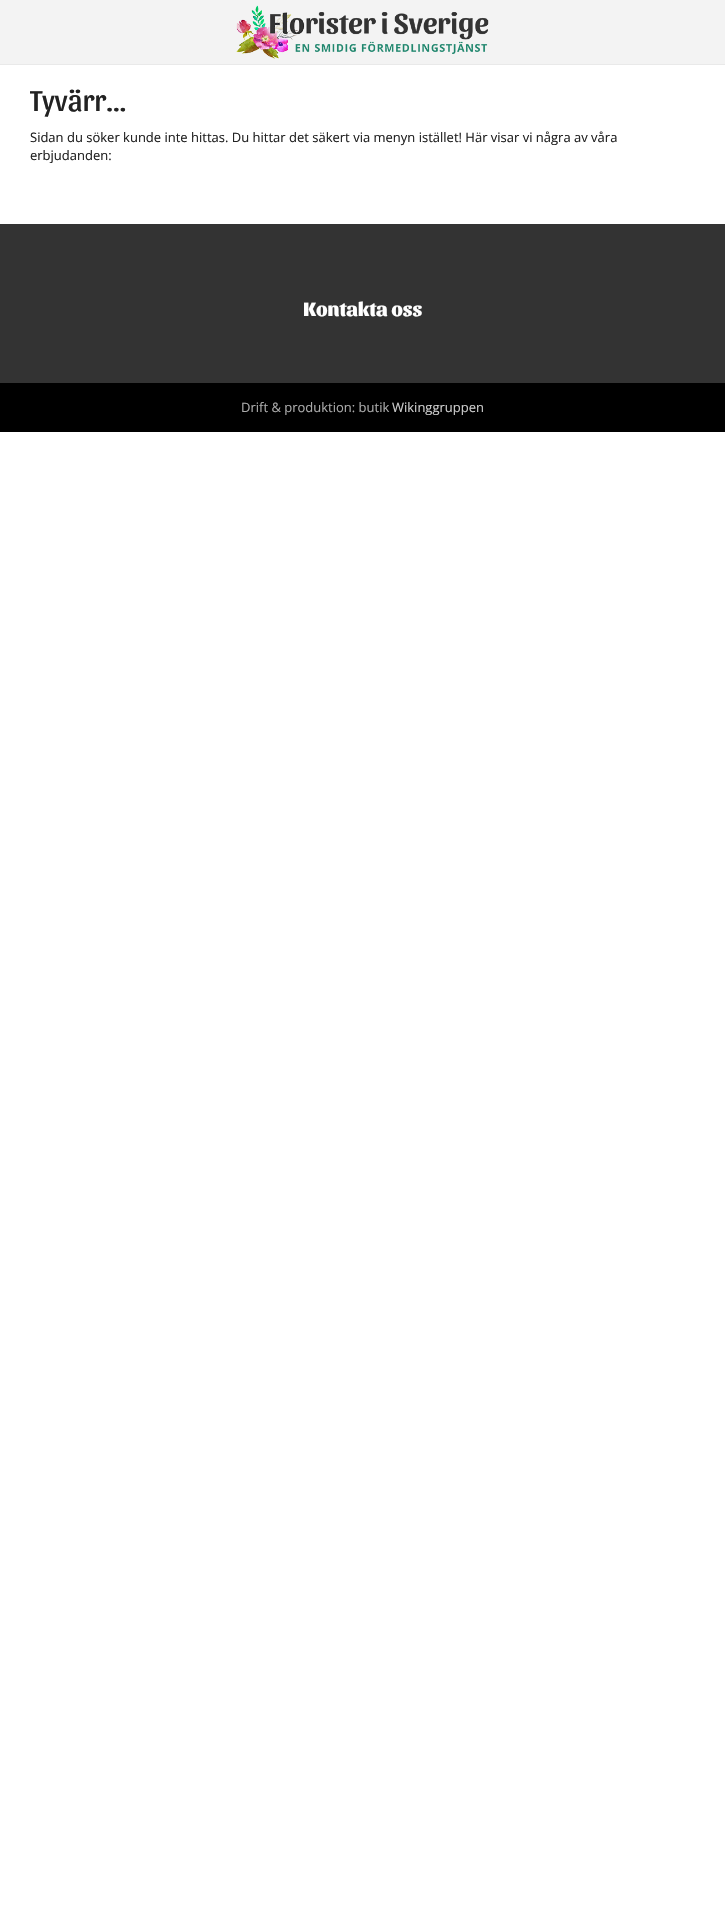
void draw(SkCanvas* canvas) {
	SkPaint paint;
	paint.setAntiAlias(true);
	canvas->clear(0xffffffff);
	paint.setColor(0xfff3f3f3);
	canvas->drawRect(SkRect::MakeXYWH(0, 0, 725, 64), paint);
	paint.setColor(0xffe9e9e9);
	canvas->drawRect(SkRect::MakeXYWH(0, 64, 725, 1), paint);
	canvas->drawImageRect(SkImages::DeferredFromEncodedData(SkData::MakeFromFileName("img1.png")), SkRect::MakeXYWH(236, 5, 253, 54), SkSamplingOptions());
	canvas->save();
	canvas->clipRect(SkRect::MakeXYWH(30, 80, 665, 104));
	SkFont f1(fontMgr->matchFamilyStyle("Sansita", SkFontStyle::Normal()), 30);
	f1.setSubpixel(true);
	paint.setColor(0xff222222);
	canvas->drawString("Tyvärr…", 30, 111, f1, paint);
	canvas->restore();
	SkFont f2(fontMgr->matchFamilyStyle("Open Sans", SkFontStyle::Normal()), 13);
	f2.setSubpixel(true);
	canvas->drawString("Sidan du söker kunde inte hittas. Du hittar det säkert via menyn istället! Här visar vi några av våra", 30, 142, f2, paint);
	canvas->drawString("erbjudanden:", 30, 160, f2, paint);
	paint.setColor(0xff333333);
	canvas->drawRect(SkRect::MakeXYWH(0, 224, 725, 159), paint);
	SkFont f3(fontMgr->matchFamilyStyle("Sansita", SkFontStyle(800, SkFontStyle::kNormal_Width, SkFontStyle::kUpright_Slant)), 20);
	f3.setSubpixel(true);
	paint.setColor(0xffffffff);
	canvas->drawString("Kontakta oss", 303, 316, f3, paint);
	paint.setColor(0xff000000);
	canvas->drawRect(SkRect::MakeXYWH(0, 383, 725, 49), paint);
	paint.setColor(0xffaaaaaa);
	canvas->drawString("Drift & produktion: butik", 241, 412, f2, paint);
	paint.setColor(0xffcccccc);
	canvas->drawString("Wikinggruppen", 392, 412, f2, paint);
}
